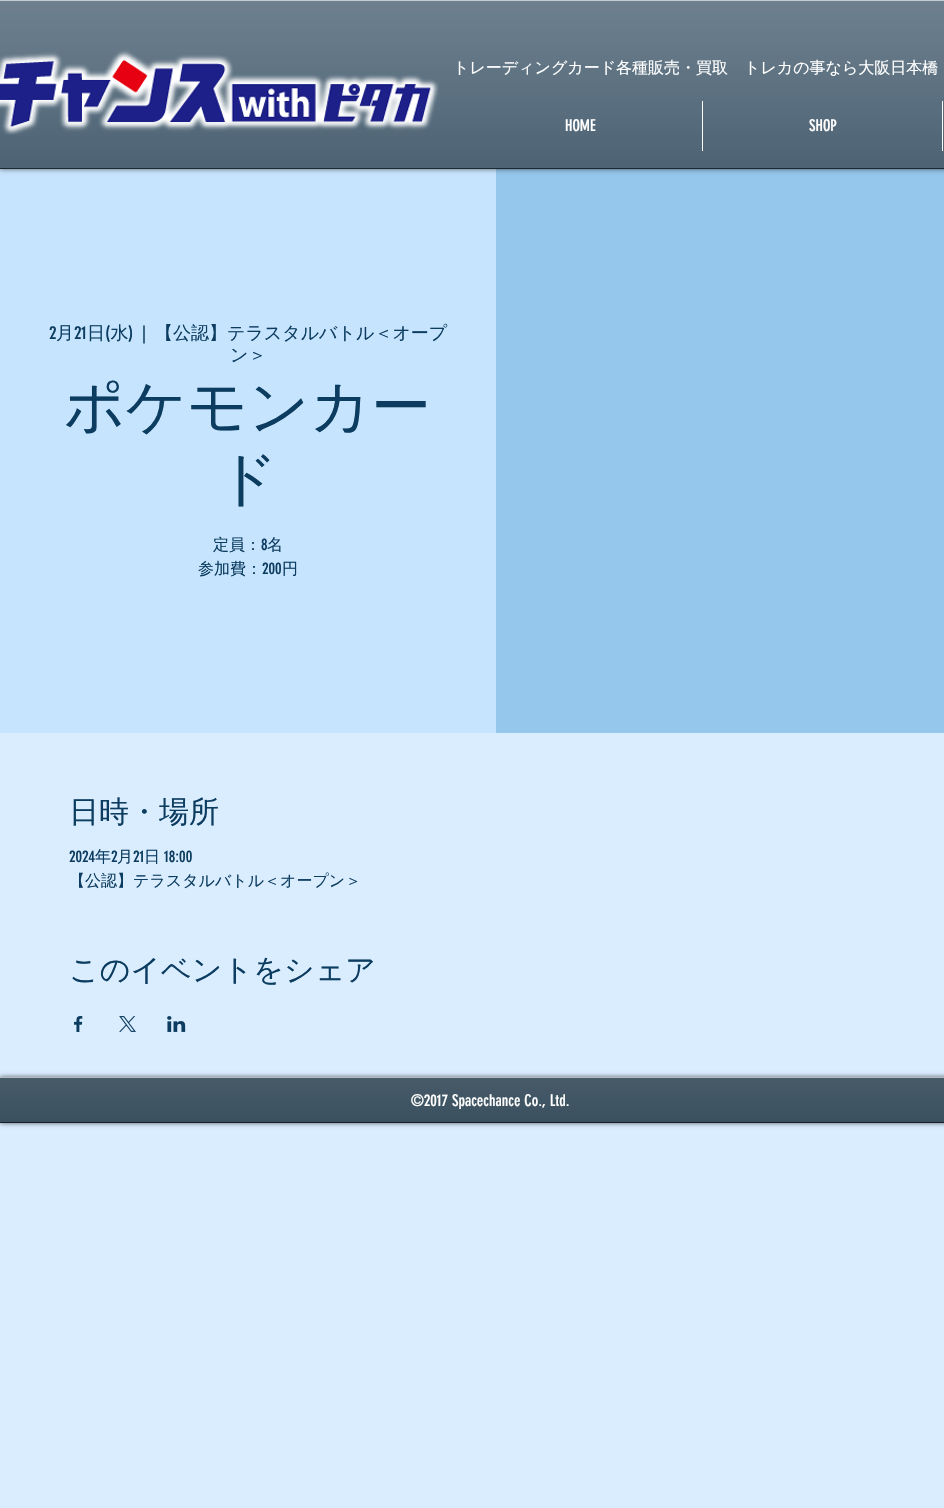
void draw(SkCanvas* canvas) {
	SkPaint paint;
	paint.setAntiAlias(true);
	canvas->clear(0xffdaedff);
	paint.setColor(0xffc6e4fd);
	canvas->drawRect(SkRect::MakeXYWH(0, 169, 496, 564), paint);
	paint.setColor(0xff95c6ec);
	canvas->drawRect(SkRect::MakeXYWH(496, 169, 448, 564), paint);
	paint.setColor(0x99000000);
	paint.setMaskFilter(SkMaskFilter::MakeBlur(kNormal_SkBlurStyle, 2.5));
	canvas->drawRect(SkRect::MakeXYWH(0, 0, 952, 169), paint);
	paint.setMaskFilter(nullptr);
	paint.setColor(0xff3b5467);
	canvas->drawRect(SkRect::MakeXYWH(0, 1, 944, 167), paint);
	canvas->drawImageRect(SkImages::DeferredFromEncodedData(SkData::MakeFromFileName("img1.png")), SkRect::MakeXYWH(0, 1, 944, 167), SkSamplingOptions());
	paint.setColor(0xff1f282f);
	canvas->drawRect(SkRect::MakeXYWH(0, 168, 944, 1), paint);
	paint.setColor(0xffc5ccd2);
	canvas->drawRect(SkRect::MakeXYWH(0, 0, 944, 1), paint);
	canvas->drawImageRect(SkImages::DeferredFromEncodedData(SkData::MakeFromFileName("img2.png")), SkRect::MakeXYWH(0, 50, 439, 85), SkSamplingOptions());
	SkFont f1(fontMgr->matchFamilyStyle("WenQuanYi Zen Hei", SkFontStyle(500, SkFontStyle::kNormal_Width, SkFontStyle::kUpright_Slant)), 16);
	f1.setSubpixel(true);
	paint.setColor(0xffffffff);
	canvas->drawString("トレーディングカード各種販売・買取　トレカの事なら大阪日本橋", 453, 73, f1, paint);
	SkFont f2(fontMgr->matchFamilyStyle("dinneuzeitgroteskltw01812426", SkFontStyle::Normal()), 16);
	f2.setSubpixel(true);
	canvas->drawString("HOME", 565, 131, f2, paint);
	canvas->drawRect(SkRect::MakeXYWH(702, 101, 1, 50), paint);
	canvas->drawString("SHOP", 809, 131, f2, paint);
	canvas->drawRect(SkRect::MakeXYWH(942, 101, 1, 50), paint);
	SkFont f3(fontMgr->matchFamilyStyle("WenQuanYi Zen Hei", SkFontStyle(500, SkFontStyle::kNormal_Width, SkFontStyle::kUpright_Slant)), 18);
	f3.setSubpixel(true);
	paint.setColor(0xff0c3c60);
	canvas->drawString("月", 56, 339, f3, paint);
	canvas->drawString("日 水", 87, 339, f3, paint);
	canvas->drawString("【公認】テラスタルバトル＜オープ", 155, 339, f3, paint);
	SkFont f4(fontMgr->matchFamilyStyle("dinneuzeitgroteskltw01812426", SkFontStyle::Normal()), 18);
	f4.setSubpixel(true);
	canvas->drawString("2", 49, 339, f4, paint);
	canvas->drawString("21", 74, 339, f4, paint);
	canvas->drawString("(", 105, 339, f4, paint);
	canvas->drawString(")", 128, 339, f4, paint);
	canvas->drawString("|", 142, 339, f4, paint);
	canvas->drawString("ン＞", 230, 361, f3, paint);
	SkFont f5(fontMgr->matchFamilyStyle("WenQuanYi Zen Hei", SkFontStyle(500, SkFontStyle::kNormal_Width, SkFontStyle::kUpright_Slant)), 60);
	f5.setSubpixel(true);
	canvas->drawString("ポケモンカー", 64, 427, f5, paint);
	canvas->drawString("ド", 217, 499, f5, paint);
	canvas->drawString("定員：", 213, 550, f1, paint);
	canvas->drawString("8", 261, 550, f2, paint);
	canvas->drawString("名", 267, 550, f1, paint);
	canvas->drawString("参加費：", 198, 574, f1, paint);
	canvas->drawString("200", 262, 574, f2, paint);
	canvas->drawString("円", 282, 574, f1, paint);
	SkFont f6(fontMgr->matchFamilyStyle("WenQuanYi Zen Hei", SkFontStyle(500, SkFontStyle::kNormal_Width, SkFontStyle::kUpright_Slant)), 30);
	f6.setSubpixel(true);
	canvas->drawString("日時・場所", 69, 822, f6, paint);
	canvas->drawString("2024", 69, 862, f2, paint);
	canvas->drawString("年", 95, 862, f1, paint);
	canvas->drawString("2", 111, 862, f2, paint);
	canvas->drawString("月", 117, 862, f1, paint);
	canvas->drawString("21", 133, 862, f2, paint);
	canvas->drawString("日", 144, 862, f1, paint);
	canvas->drawString("18:00", 164, 862, f2, paint);
	canvas->drawString("【公認】テラスタルバトル＜オープン＞", 69, 886, f1, paint);
	canvas->drawString("このイベントをシェア", 69, 980, f6, paint);
	canvas->drawImageRect(SkImages::DeferredFromEncodedData(SkData::MakeFromFileName("img3.png")), SkRect::MakeXYWH(74, 1016, 9, 16), SkSamplingOptions());
	canvas->drawImageRect(SkImages::DeferredFromEncodedData(SkData::MakeFromFileName("img4.png")), SkRect::MakeXYWH(119, 1016, 17, 16), SkSamplingOptions());
	canvas->drawImageRect(SkImages::DeferredFromEncodedData(SkData::MakeFromFileName("img5.png")), SkRect::MakeXYWH(167, 1016, 19, 16), SkSamplingOptions());
	paint.setColor(0x99000000);
	paint.setMaskFilter(SkMaskFilter::MakeBlur(kNormal_SkBlurStyle, 2.5));
	canvas->drawRect(SkRect::MakeXYWH(0, 1077, 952, 46), paint);
	paint.setMaskFilter(nullptr);
	paint.setColor(0xff062134);
	canvas->drawRect(SkRect::MakeXYWH(0, 1078, 944, 44), paint);
	canvas->drawImageRect(SkImages::DeferredFromEncodedData(SkData::MakeFromFileName("img6.png")), SkRect::MakeXYWH(0, 1078, 944, 44), SkSamplingOptions());
	paint.setColor(0xff172026);
	canvas->drawRect(SkRect::MakeXYWH(0, 1122, 944, 1), paint);
	paint.setColor(0xffb5bdc3);
	canvas->drawRect(SkRect::MakeXYWH(0, 1077, 944, 1), paint);
	paint.setColor(0xffffffff);
	canvas->drawString("©2017 Spacechance Co., Ltd.", 411, 1106, f2, paint);
}
